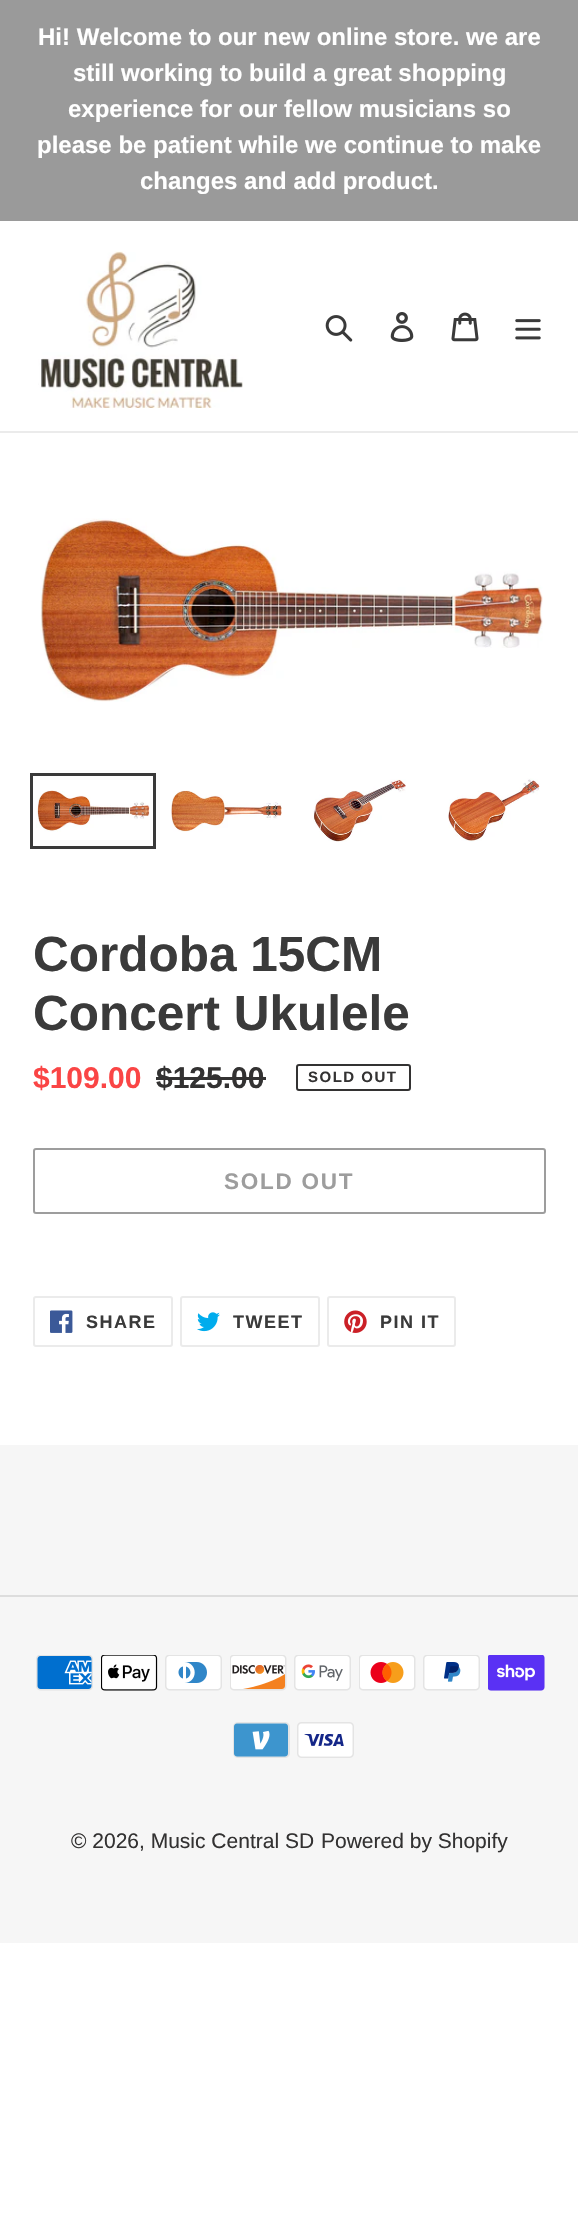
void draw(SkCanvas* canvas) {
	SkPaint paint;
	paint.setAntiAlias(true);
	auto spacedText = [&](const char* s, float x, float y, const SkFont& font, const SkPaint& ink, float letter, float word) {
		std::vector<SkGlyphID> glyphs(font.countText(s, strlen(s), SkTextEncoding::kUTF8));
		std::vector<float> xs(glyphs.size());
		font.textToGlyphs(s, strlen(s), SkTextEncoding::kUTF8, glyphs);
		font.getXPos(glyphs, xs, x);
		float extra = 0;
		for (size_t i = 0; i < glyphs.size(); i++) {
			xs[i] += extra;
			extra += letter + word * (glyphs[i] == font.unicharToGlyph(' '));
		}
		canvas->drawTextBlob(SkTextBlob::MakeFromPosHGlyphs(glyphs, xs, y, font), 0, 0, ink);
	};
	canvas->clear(0xffffffff);
	paint.setColor(0xff9a9a9a);
	canvas->drawRect(SkRect::MakeXYWH(0, 0, 578, 221), paint);
	SkFont f1(fontMgr->matchFamilyStyle("Liberation Sans", SkFontStyle::Bold()), 24);
	f1.setSubpixel(true);
	paint.setColor(0xffffffff);
	canvas->drawString("Hi! Welcome to our new online store. we are", 38, 45, f1, paint);
	canvas->drawString("still working to build a great shopping", 73, 81, f1, paint);
	canvas->drawString("experience for our fellow musicians so", 68, 117, f1, paint);
	canvas->drawString("please be patient while we continue to make", 37, 153, f1, paint);
	canvas->drawString("changes and add product.", 140, 189, f1, paint);
	paint.setColor(0xffebebeb);
	canvas->drawRect(SkRect::MakeXYWH(0, 431, 578, 2), paint);
	canvas->drawImageRect(SkImages::DeferredFromEncodedData(SkData::MakeFromFileName("img1.png")), SkRect::MakeXYWH(38, 251, 205, 157), SkSamplingOptions());
	canvas->drawImageRect(SkImages::DeferredFromEncodedData(SkData::MakeFromFileName("img2.png")), SkRect::MakeXYWH(325, 315, 28, 27), SkSamplingOptions());
	canvas->drawImageRect(SkImages::DeferredFromEncodedData(SkData::MakeFromFileName("img3.png")), SkRect::MakeXYWH(390, 312, 24, 30), SkSamplingOptions());
	canvas->drawImageRect(SkImages::DeferredFromEncodedData(SkData::MakeFromFileName("img4.png")), SkRect::MakeXYWH(451, 312, 28, 30), SkSamplingOptions());
	canvas->drawImageRect(SkImages::DeferredFromEncodedData(SkData::MakeFromFileName("img5.png")), SkRect::MakeXYWH(515, 319, 26, 21), SkSamplingOptions());
	canvas->drawImageRect(SkImages::DeferredFromEncodedData(SkData::MakeFromFileName("img6.png")), SkRect::MakeXYWH(40, 518, 503, 184), SkSamplingOptions());
	paint.setStroke(true);
	paint.setStrokeWidth(3);
	paint.setColor(0xff3a3a3a);
	canvas->drawRect(SkRect::MakeXYWH(31.5, 774.5, 123, 73), paint);
	canvas->drawImageRect(SkImages::DeferredFromEncodedData(SkData::MakeFromFileName("img7.png")), SkRect::MakeXYWH(36, 790, 114, 42), SkSamplingOptions());
	canvas->drawImageRect(SkImages::DeferredFromEncodedData(SkData::MakeFromFileName("img8.png")), SkRect::MakeXYWH(170, 790, 112, 42), SkSamplingOptions());
	canvas->drawImageRect(SkImages::DeferredFromEncodedData(SkData::MakeFromFileName("img9.png")), SkRect::MakeXYWH(313, 779, 93, 63), SkSamplingOptions());
	canvas->drawImageRect(SkImages::DeferredFromEncodedData(SkData::MakeFromFileName("img10.png")), SkRect::MakeXYWH(448, 778, 92, 64), SkSamplingOptions());
	SkFont f2(fontMgr->matchFamilyStyle("Liberation Sans", SkFontStyle::Bold()), 49.5);
	f2.setSubpixel(true);
	paint.setStroke(false);
	canvas->drawString("Cordoba 15CM", 33, 971, f2, paint);
	canvas->drawString("Concert Ukulele", 33, 1030, f2, paint);
	SkFont f3(fontMgr->matchFamilyStyle("Liberation Sans", SkFontStyle::Bold()), 30);
	f3.setSubpixel(true);
	paint.setColor(0xfffa4545);
	canvas->drawString("$109.00", 33, 1088, f3, paint);
	paint.setColor(0xff333232);
	canvas->drawString("$125.00", 156, 1088, f3, paint);
	canvas->drawRect(SkRect::MakeXYWH(156, 1077, 110, 3), paint);
	paint.setStroke(true);
	paint.setStrokeWidth(2);
	canvas->drawRoundRect(SkRect::MakeXYWH(297, 1065, 113, 25), 2, 2, paint);
	SkFont f4(fontMgr->matchFamilyStyle("Liberation Sans", SkFontStyle::Bold()), 15);
	f4.setSubpixel(true);
	paint.setStroke(false);
	spacedText("SOLD OUT", 308, 1082, f4, paint, 1.5, 0);
	paint.setStroke(true);
	paint.setColor(0xff9d9d9d);
	canvas->drawRoundRect(SkRect::MakeXYWH(34, 1149, 511, 64), 2, 2, paint);
	SkFont f5(fontMgr->matchFamilyStyle("Liberation Sans", SkFontStyle::Bold()), 22.5);
	f5.setSubpixel(true);
	paint.setStroke(false);
	spacedText("SOLD OUT", 224, 1189, f5, paint, 1.75, 0);
	paint.setStroke(true);
	paint.setColor(0xffebebeb);
	canvas->drawRoundRect(SkRect::MakeXYWH(34, 1297, 138, 49), 2, 2, paint);
	canvas->drawImageRect(SkImages::DeferredFromEncodedData(SkData::MakeFromFileName("img11.png")), SkRect::MakeXYWH(50, 1310, 23, 23), SkSamplingOptions());
	SkFont f6(fontMgr->matchFamilyStyle("Liberation Sans", SkFontStyle::Bold()), 18);
	f6.setSubpixel(true);
	paint.setStroke(false);
	paint.setColor(0xff3a3a3a);
	spacedText("SHARE", 86, 1328, f6, paint, 1.5, 0);
	paint.setStroke(true);
	paint.setColor(0xffebebeb);
	canvas->drawRoundRect(SkRect::MakeXYWH(181, 1297, 138, 49), 2, 2, paint);
	canvas->drawImageRect(SkImages::DeferredFromEncodedData(SkData::MakeFromFileName("img12.png")), SkRect::MakeXYWH(197, 1312, 23, 20), SkSamplingOptions());
	paint.setStroke(false);
	paint.setColor(0xff3a3a3a);
	spacedText("TWEET", 233, 1328, f6, paint, 1.5, 0);
	paint.setStroke(true);
	paint.setColor(0xffebebeb);
	canvas->drawRoundRect(SkRect::MakeXYWH(328, 1297, 127, 49), 2, 2, paint);
	canvas->drawImageRect(SkImages::DeferredFromEncodedData(SkData::MakeFromFileName("img13.png")), SkRect::MakeXYWH(344, 1310, 23, 23), SkSamplingOptions());
	paint.setStroke(false);
	paint.setColor(0xff3a3a3a);
	spacedText("PIN IT", 380, 1328, f6, paint, 1.5, 0);
	paint.setColor(0xfff6f6f6);
	canvas->drawRect(SkRect::MakeXYWH(0, 1445, 578, 498), paint);
	paint.setColor(0xffdddddd);
	canvas->drawRect(SkRect::MakeXYWH(0, 1595, 578, 2), paint);
	canvas->drawImageRect(SkImages::DeferredFromEncodedData(SkData::MakeFromFileName("img14.png")), SkRect::MakeXYWH(36, 1655, 57, 36), SkSamplingOptions());
	canvas->drawImageRect(SkImages::DeferredFromEncodedData(SkData::MakeFromFileName("img15.png")), SkRect::MakeXYWH(101, 1655, 57, 36), SkSamplingOptions());
	canvas->drawImageRect(SkImages::DeferredFromEncodedData(SkData::MakeFromFileName("img16.png")), SkRect::MakeXYWH(165, 1655, 57, 36), SkSamplingOptions());
	canvas->drawImageRect(SkImages::DeferredFromEncodedData(SkData::MakeFromFileName("img17.png")), SkRect::MakeXYWH(230, 1655, 57, 36), SkSamplingOptions());
	canvas->drawImageRect(SkImages::DeferredFromEncodedData(SkData::MakeFromFileName("img18.png")), SkRect::MakeXYWH(294, 1655, 57, 36), SkSamplingOptions());
	canvas->drawImageRect(SkImages::DeferredFromEncodedData(SkData::MakeFromFileName("img19.png")), SkRect::MakeXYWH(359, 1655, 57, 36), SkSamplingOptions());
	canvas->drawImageRect(SkImages::DeferredFromEncodedData(SkData::MakeFromFileName("img20.png")), SkRect::MakeXYWH(423, 1655, 57, 36), SkSamplingOptions());
	canvas->drawImageRect(SkImages::DeferredFromEncodedData(SkData::MakeFromFileName("img21.png")), SkRect::MakeXYWH(488, 1655, 57, 36), SkSamplingOptions());
	canvas->drawImageRect(SkImages::DeferredFromEncodedData(SkData::MakeFromFileName("img22.png")), SkRect::MakeXYWH(233, 1722, 57, 36), SkSamplingOptions());
	canvas->drawImageRect(SkImages::DeferredFromEncodedData(SkData::MakeFromFileName("img23.png")), SkRect::MakeXYWH(297, 1722, 57, 36), SkSamplingOptions());
	SkFont f7(fontMgr->matchFamilyStyle("Liberation Sans", SkFontStyle::Normal()), 21);
	f7.setSubpixel(true);
	paint.setColor(0xff333232);
	canvas->drawString("© 2026, Music Central SD", 71, 1848, f7, paint);
	canvas->drawString("Powered by Shopify", 321, 1848, f7, paint);
}
